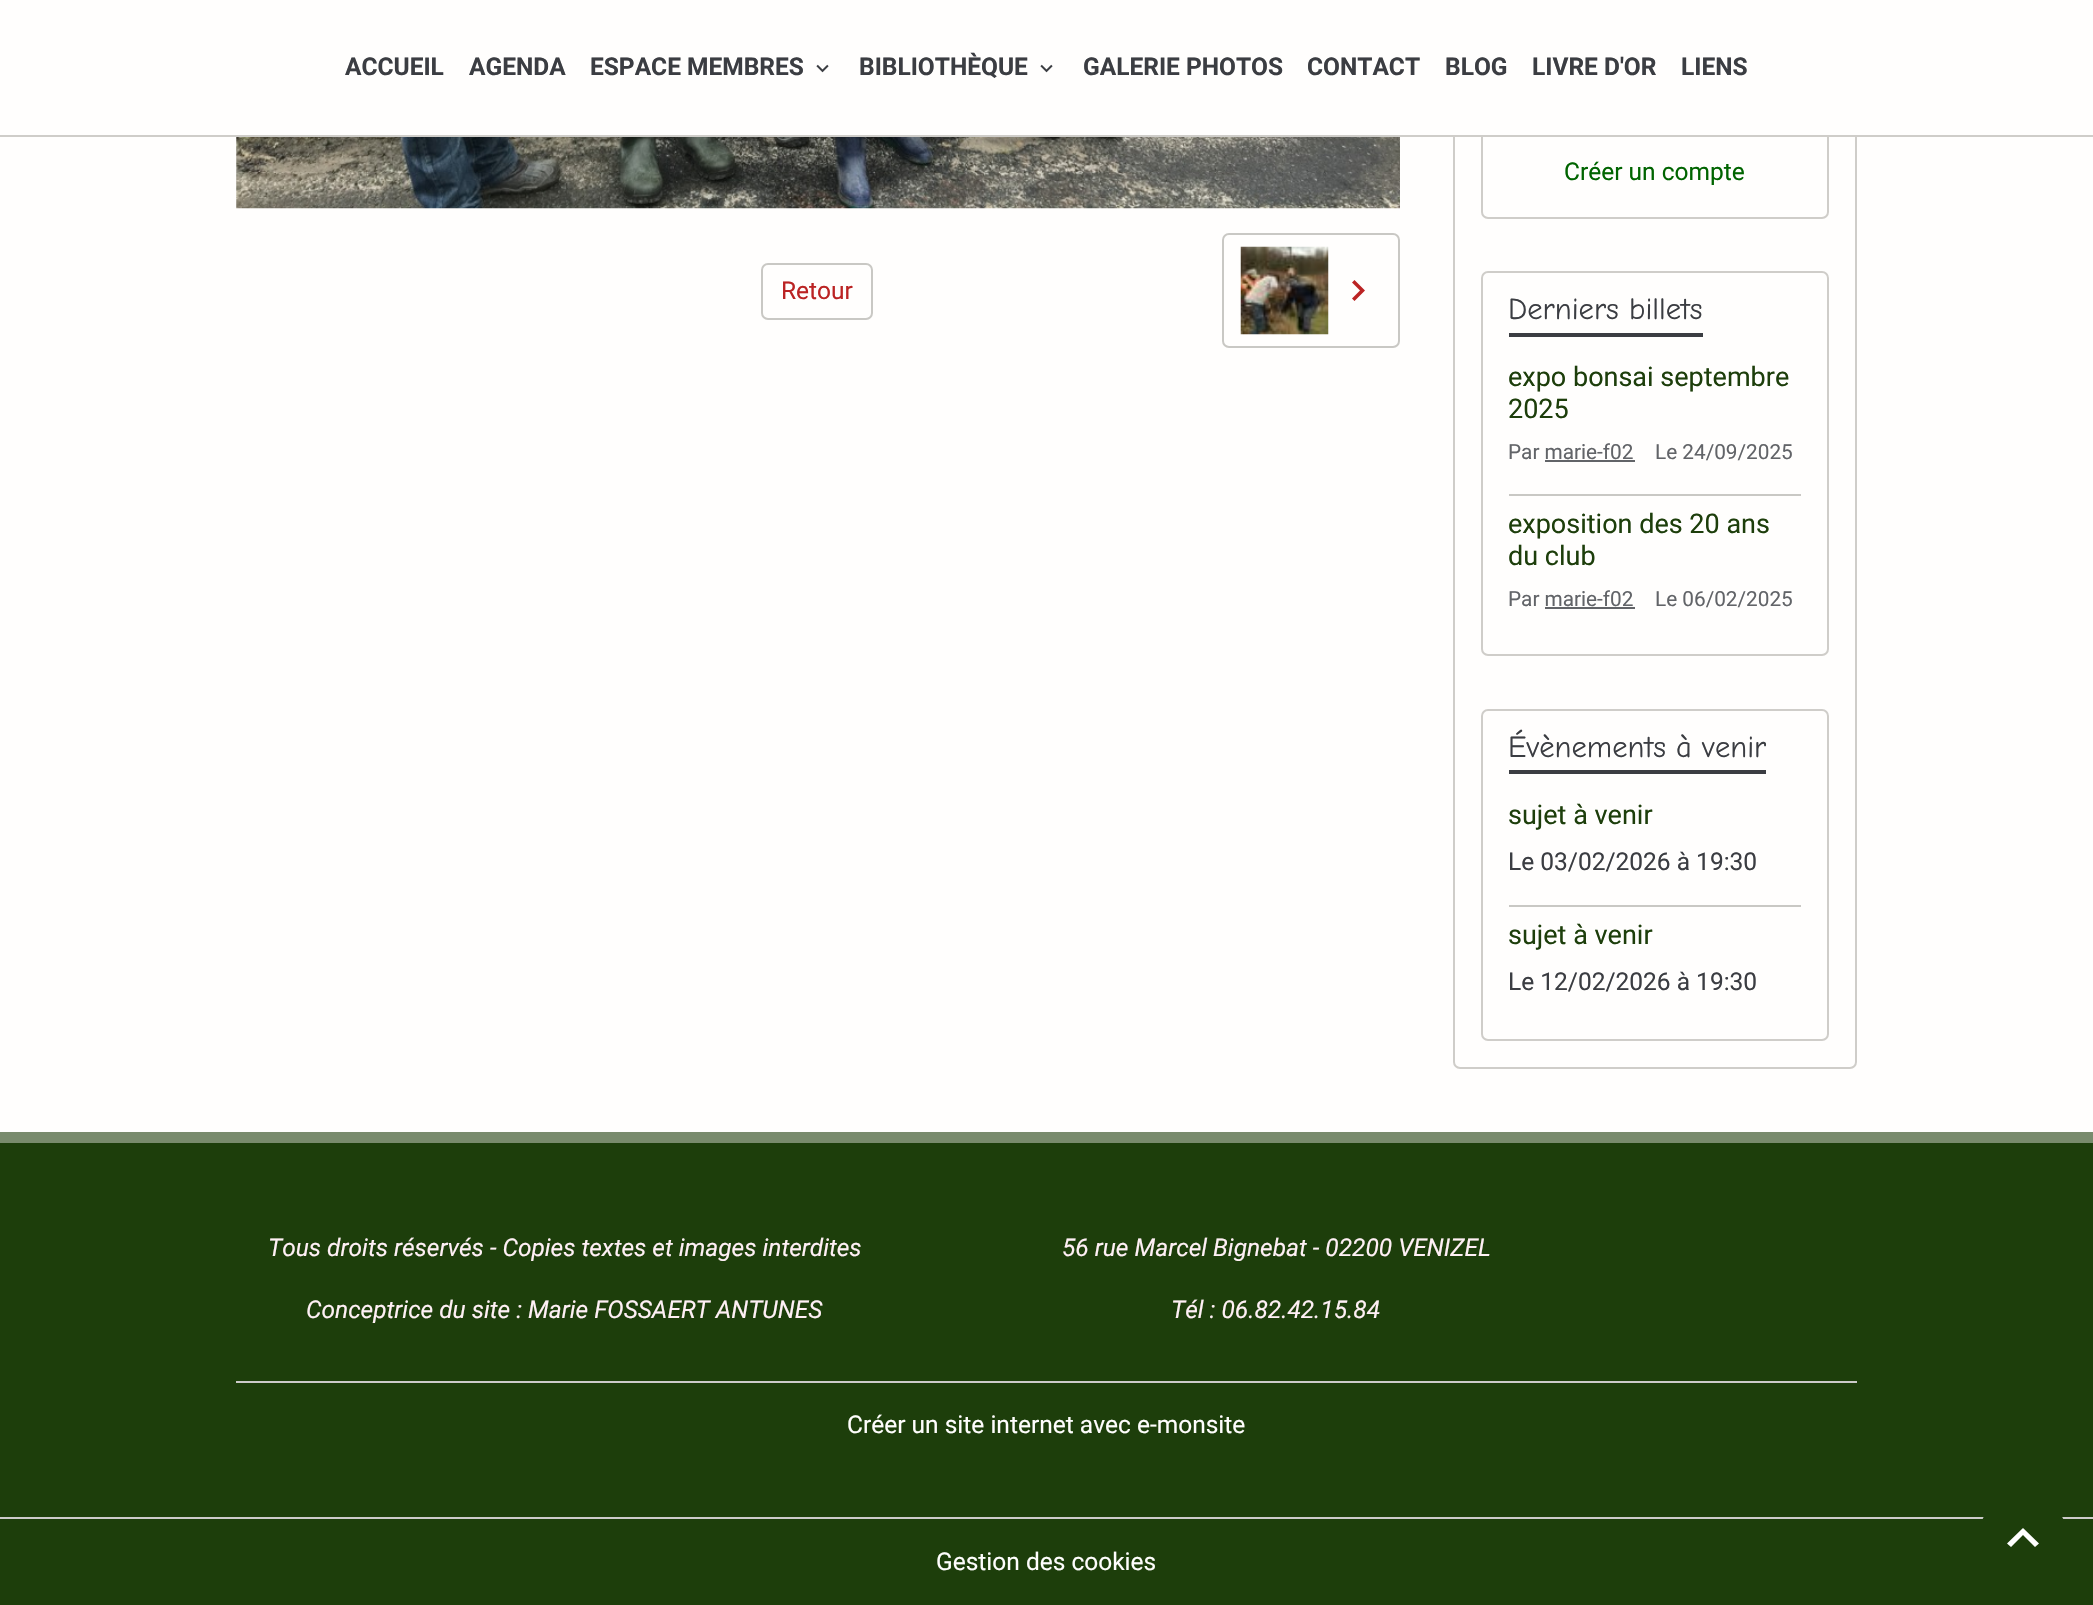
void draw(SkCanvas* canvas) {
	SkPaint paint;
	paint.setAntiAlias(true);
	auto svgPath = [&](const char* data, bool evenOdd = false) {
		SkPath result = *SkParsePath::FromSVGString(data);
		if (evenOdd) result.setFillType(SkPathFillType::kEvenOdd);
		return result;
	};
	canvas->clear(0xfffffefd);
	paint.setStroke(true);
	paint.setStrokeWidth(2);
	paint.setColor(0xffcfcdc9);
	canvas->drawRoundRect(SkRect::MakeXYWH(1454, -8, 402, 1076), 6, 6, paint);
	canvas->drawRoundRect(SkRect::MakeXYWH(1482, 3, 346, 215), 6, 6, paint);
	paint.setStroke(false);
	paint.setColor(0xfffffefd);
	canvas->drawRect(SkRect::MakeXYWH(1453, 0, 404, 135), paint);
	paint.setColor(0xffcfcdc9);
	canvas->drawRect(SkRect::MakeXYWH(0, 135, 2093, 2), paint);
	SkFont f1(fontMgr->matchFamilyStyle("Roboto", SkFontStyle::Bold()), 24.5);
	f1.setSubpixel(true);
	paint.setColor(0xff3b3d42);
	canvas->drawString("ACCUEIL", 345, 75, f1, paint);
	canvas->drawString("AGENDA", 469, 75, f1, paint);
	canvas->drawString("ESPACE MEMBRES", 590, 75, f1, paint);
	canvas->drawImageRect(SkImages::DeferredFromEncodedData(SkData::MakeFromFileName("img1.png")), SkRect::MakeXYWH(816, 64, 13, 9), SkSamplingOptions());
	canvas->drawString("BIBLIOTHÈQUE", 859, 75, f1, paint);
	canvas->drawImageRect(SkImages::DeferredFromEncodedData(SkData::MakeFromFileName("img1.png")), SkRect::MakeXYWH(1040, 64, 13, 9), SkSamplingOptions());
	canvas->drawString("GALERIE PHOTOS", 1083, 75, f1, paint);
	canvas->drawString("CONTACT", 1307, 75, f1, paint);
	canvas->drawString("BLOG", 1445, 75, f1, paint);
	canvas->drawString("LIVRE D'OR", 1532, 75, f1, paint);
	canvas->drawString("LIENS", 1681, 75, f1, paint);
	canvas->drawImageRect(SkImages::DeferredFromEncodedData(SkData::MakeFromFileName("img2.png")), SkRect::MakeXYWH(236, 137, 1164, 72), SkSamplingOptions());
	paint.setStroke(true);
	paint.setColor(0xffc9c8c4);
	canvas->drawRoundRect(SkRect::MakeXYWH(762, 264, 110, 55), 6, 6, paint);
	SkFont f2(fontMgr->matchFamilyStyle("Roboto", SkFontStyle::Normal()), 24.5);
	f2.setSubpixel(true);
	paint.setStroke(false);
	paint.setColor(0xffbb2323);
	canvas->drawString("Retour", 781, 299, f2, paint);
	paint.setStroke(true);
	paint.setColor(0xffc9c8c4);
	canvas->drawRoundRect(SkRect::MakeXYWH(1223, 234, 176, 113), 6, 6, paint);
	canvas->drawImageRect(SkImages::DeferredFromEncodedData(SkData::MakeFromFileName("img3.png")), SkRect::MakeXYWH(1240, 246, 89, 89), SkSamplingOptions());
	paint.setStroke(false);
	paint.setColor(0xffbb2323);
	canvas->drawPath(svgPath("M1354.5 280L1365 290.5L1354.5 301L1352 298.5L1360 290.5L1352 282.5Z"), paint);
	paint.setColor(0xff006400);
	canvas->drawString("Créer un compte", 1564, 180, f2, paint);
	paint.setStroke(true);
	paint.setColor(0xffcfcdc9);
	canvas->drawRoundRect(SkRect::MakeXYWH(1482, 272, 346, 383), 6, 6, paint);
	paint.setStroke(false);
	paint.setColor(0xff3b3d42);
	canvas->drawRect(SkRect::MakeXYWH(1509, 333, 194, 4), paint);
	SkFont f3(fontMgr->matchFamilyStyle("Comic Neue", SkFontStyle::Normal()), 30.6);
	f3.setSubpixel(true);
	canvas->drawString("Derniers billets", 1508, 319, f3, paint);
	SkFont f4(fontMgr->matchFamilyStyle("Roboto", SkFontStyle::Normal()), 27);
	f4.setSubpixel(true);
	paint.setColor(0xff1d3e0b);
	canvas->drawString("expo bonsai septembre", 1508, 386, f4, paint);
	canvas->drawString("2025", 1508, 418, f4, paint);
	SkFont f5(fontMgr->matchFamilyStyle("Roboto", SkFontStyle::Normal()), 20.75);
	f5.setSubpixel(true);
	paint.setColor(0xff626468);
	canvas->drawString("Par marie-f02", 1508, 459, f5, paint);
	canvas->drawRect(SkRect::MakeXYWH(1545, 460, 90, 2), paint);
	canvas->drawString("Le 24/09/2025", 1655, 459, f5, paint);
	paint.setColor(0xffc9c8c4);
	canvas->drawRect(SkRect::MakeXYWH(1509, 494, 292, 2), paint);
	paint.setColor(0xff1d3e0b);
	canvas->drawString("exposition des 20 ans", 1508, 533, f4, paint);
	canvas->drawString("du club", 1508, 565, f4, paint);
	paint.setColor(0xff626468);
	canvas->drawString("Par marie-f02", 1508, 606, f5, paint);
	canvas->drawRect(SkRect::MakeXYWH(1545, 607, 90, 2), paint);
	canvas->drawString("Le 06/02/2025", 1655, 606, f5, paint);
	paint.setStroke(true);
	paint.setColor(0xffcfcdc9);
	canvas->drawRoundRect(SkRect::MakeXYWH(1482, 710, 346, 330), 6, 6, paint);
	paint.setStroke(false);
	paint.setColor(0xff3b3d42);
	canvas->drawRect(SkRect::MakeXYWH(1509, 770, 257, 4), paint);
	canvas->drawString("Évènements à venir", 1508, 757, f3, paint);
	paint.setColor(0xff1d3e0b);
	canvas->drawString("sujet à venir", 1508, 824, f4, paint);
	paint.setColor(0xff3b3d42);
	canvas->drawString("Le 03/02/2026 à 19:30", 1508, 870, f2, paint);
	paint.setColor(0xffc9c8c4);
	canvas->drawRect(SkRect::MakeXYWH(1509, 905, 292, 2), paint);
	paint.setColor(0xff1d3e0b);
	canvas->drawString("sujet à venir", 1508, 944, f4, paint);
	paint.setColor(0xff3b3d42);
	canvas->drawString("Le 12/02/2026 à 19:30", 1508, 990, f2, paint);
	paint.setColor(0xff1d3e0b);
	canvas->drawRect(SkRect::MakeXYWH(0, 1143, 2093, 462), paint);
	paint.setColor(0xff798b6d);
	canvas->drawRect(SkRect::MakeXYWH(0, 1132, 2093, 11), paint);
	SkFont f6(fontMgr->matchFamilyStyle("Roboto", SkFontStyle::Italic()), 24.5);
	f6.setSubpixel(true);
	paint.setColor(0xfffff0f5);
	canvas->drawString("Tous droits réservés - Copies textes et images interdites", 268, 1256, f6, paint);
	canvas->drawString("Conceptrice du site : Marie FOSSAERT ANTUNES", 306, 1318, f6, paint);
	canvas->drawString("56 rue Marcel Bignebat - 02200 VENIZEL", 1062, 1256, f6, paint);
	canvas->drawString("Tél : 06.82.42.15.84", 1171, 1318, f6, paint);
	paint.setColor(0xffcccbca);
	canvas->drawRect(SkRect::MakeXYWH(236, 1381, 1621, 2), paint);
	paint.setColor(0xfffffefd);
	canvas->drawString("Créer un site internet avec e-monsite", 847, 1433, f2, paint);
	paint.setColor(0xffcccbca);
	canvas->drawRect(SkRect::MakeXYWH(0, 1517, 2093, 2), paint);
	paint.setColor(0xfffffefd);
	canvas->drawString("Gestion des cookies", 936, 1570, f2, paint);
	paint.setColor(0xff1d3e0b);
	canvas->drawRoundRect(SkRect::MakeXYWH(1979, 1493, 88, 87), 43.5, 43.5, paint);
	paint.setColor(0xffffffff);
	canvas->drawPath(svgPath("M2023 1528L2039 1543.5L2035 1547L2023 1535L2011 1547L2007 1543.5Z"), paint);
}
